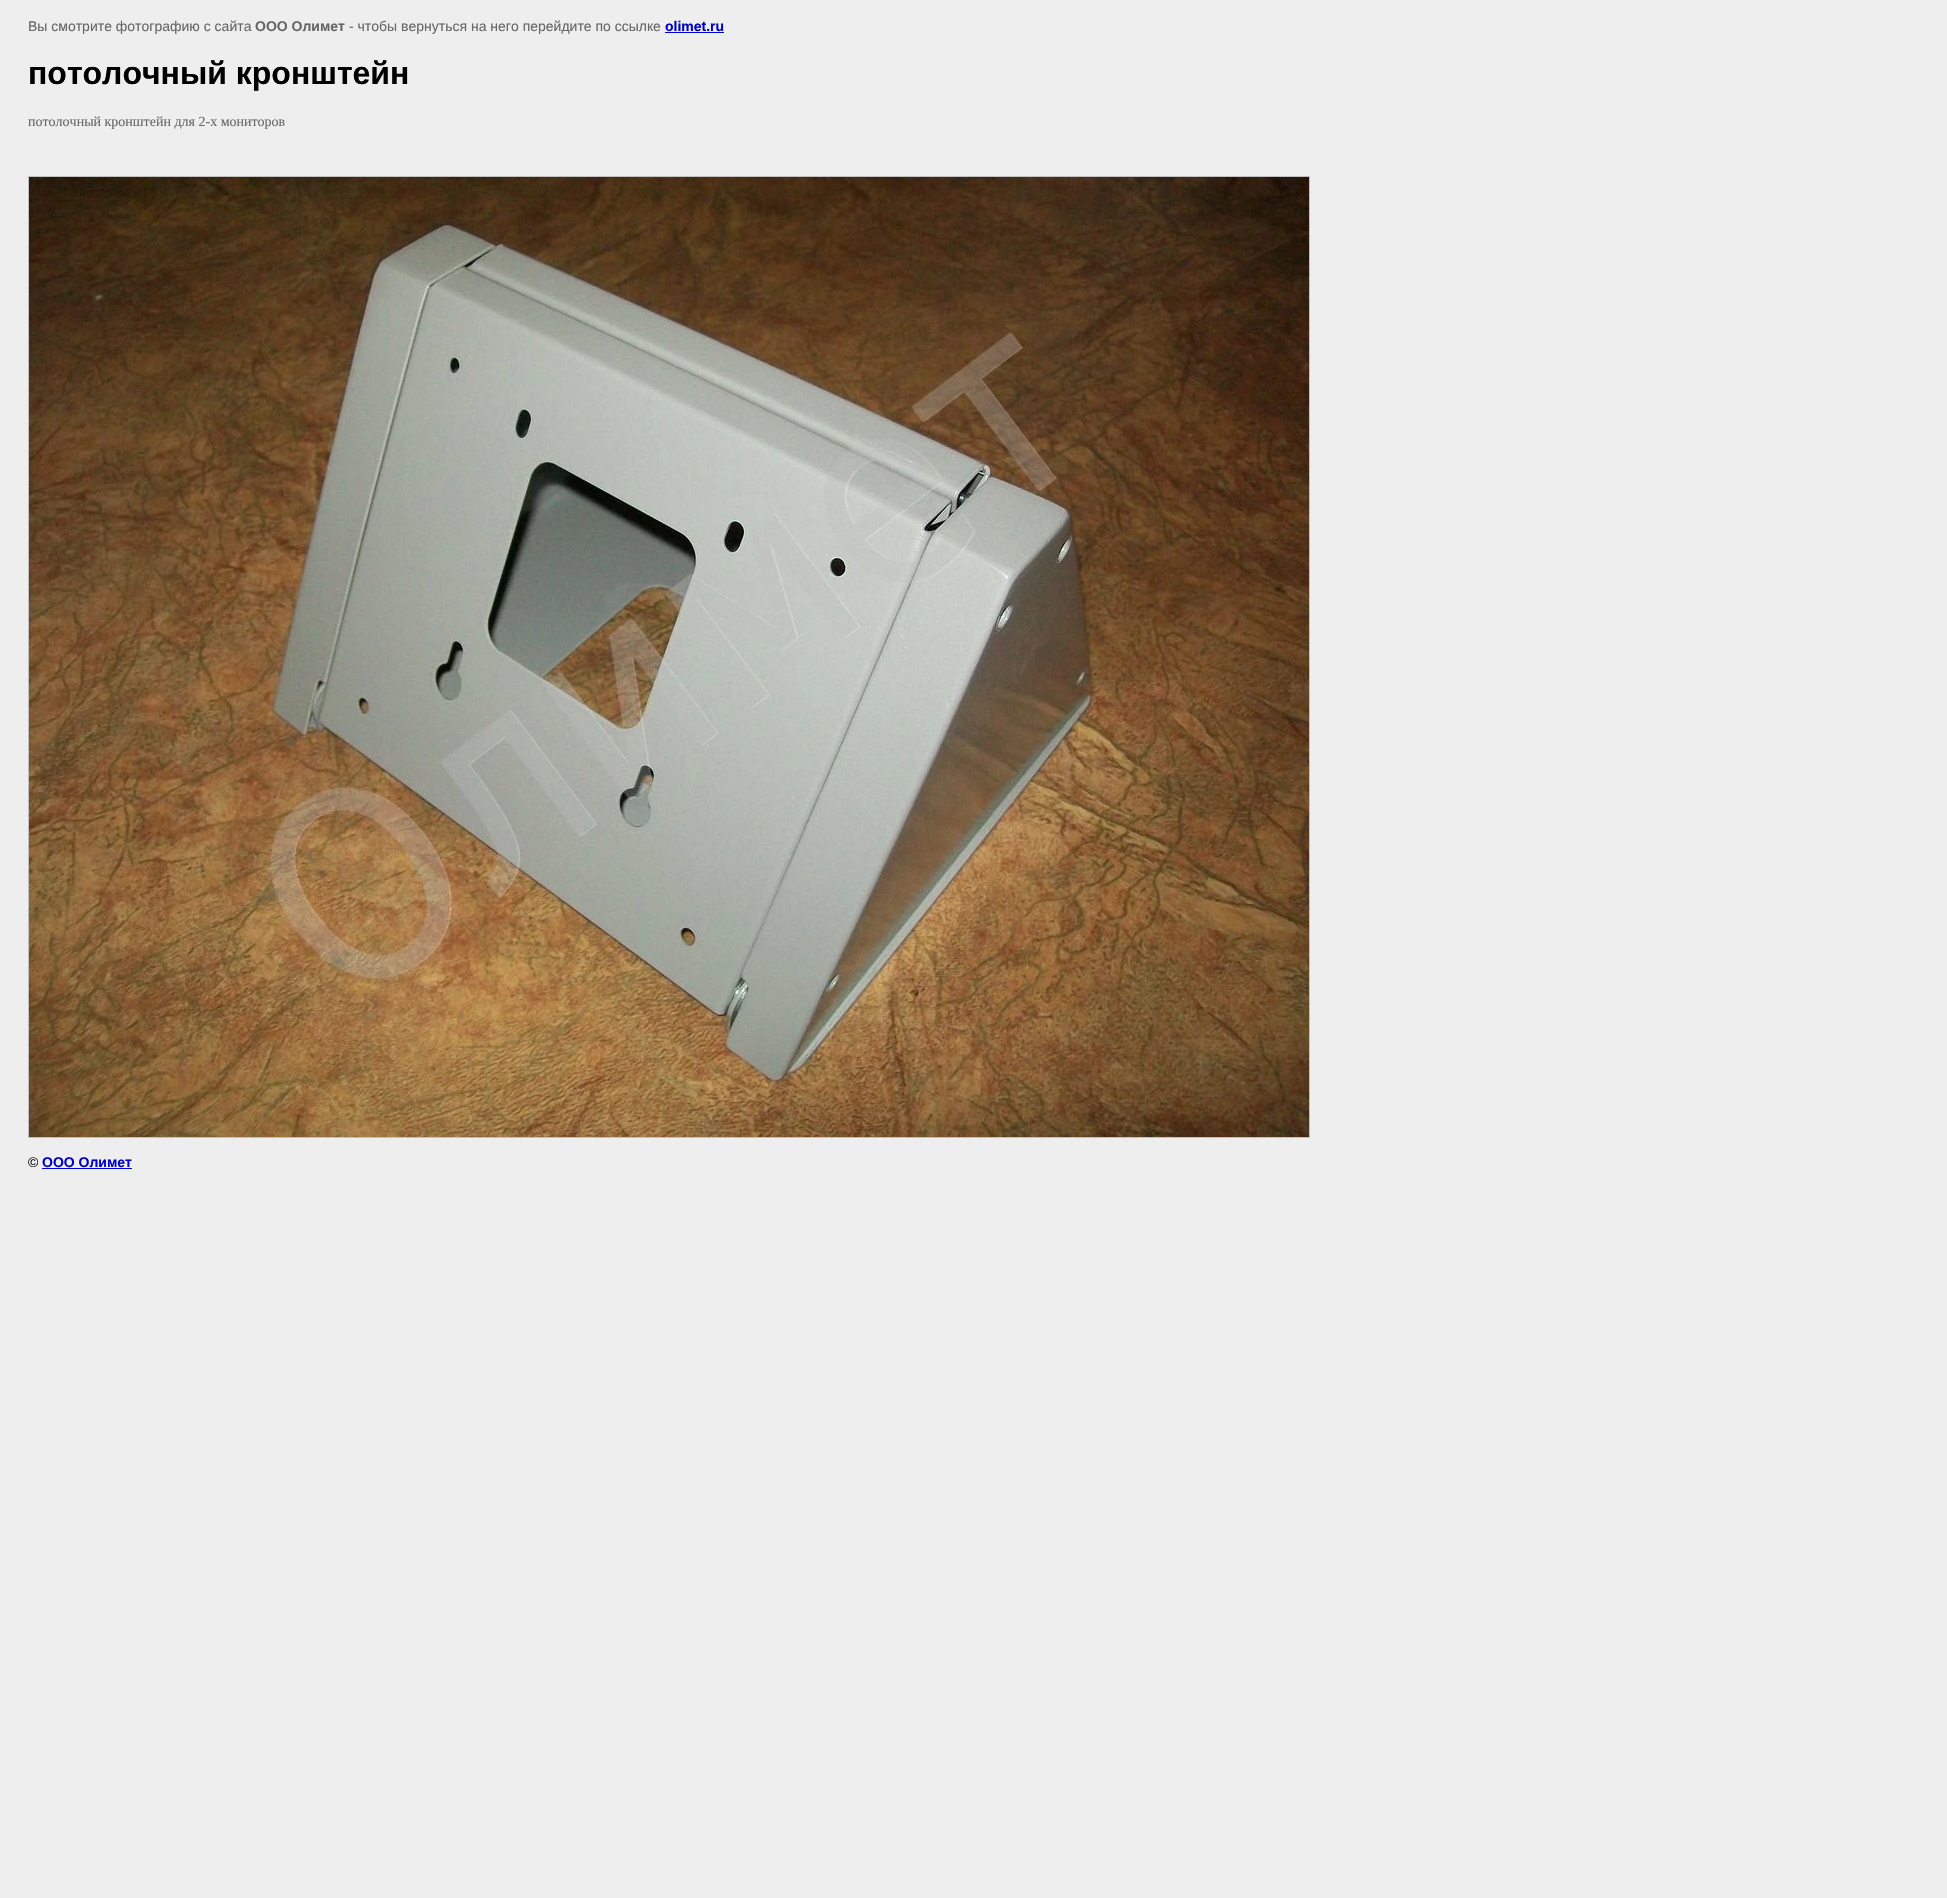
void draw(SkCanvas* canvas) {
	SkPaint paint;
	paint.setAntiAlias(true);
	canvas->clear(0xffeeeeee);
	SkFont f1(fontMgr->matchFamilyStyle("Liberation Sans", SkFontStyle::Normal()), 14);
	f1.setSubpixel(true);
	paint.setColor(0xff666666);
	canvas->drawString("Вы смотрите фотографию с сайта", 28, 31, f1, paint);
	SkFont f2(fontMgr->matchFamilyStyle("Liberation Sans", SkFontStyle::Bold()), 14);
	f2.setSubpixel(true);
	canvas->drawString("ООО Олимет", 255, 31, f2, paint);
	canvas->drawString("- чтобы вернуться на него перейдите по ссылке", 349, 31, f1, paint);
	paint.setColor(0xff0000cc);
	canvas->drawString("olimet.ru", 665, 31, f2, paint);
	canvas->drawRect(SkRect::MakeXYWH(665, 32, 59, 1), paint);
	SkFont f3(fontMgr->matchFamilyStyle("Liberation Sans", SkFontStyle::Bold()), 32);
	f3.setSubpixel(true);
	paint.setColor(0xff000000);
	canvas->drawString("потолочный кронштейн", 28, 84, f3, paint);
	SkFont f4(fontMgr->matchFamilyStyle("Liberation Serif", SkFontStyle::Normal()), 14);
	f4.setSubpixel(true);
	paint.setColor(0xff666666);
	canvas->drawString("потолочный кронштейн для 2-х мониторов", 28, 126, f4, paint);
	paint.setStroke(true);
	paint.setStrokeWidth(1);
	paint.setColor(0xffc0c0c0);
	canvas->drawRect(SkRect::MakeXYWH(28.5, 176.5, 1281, 961), paint);
	canvas->drawImageRect(SkImages::DeferredFromEncodedData(SkData::MakeFromFileName("img1.png")), SkRect::MakeXYWH(29, 177, 1280, 960), SkSamplingOptions());
	paint.setStroke(false);
	paint.setColor(0xff000000);
	canvas->drawString("©", 28, 1167, f1, paint);
	paint.setColor(0xff0000cc);
	canvas->drawString("ООО Олимет", 42, 1167, f2, paint);
	canvas->drawRect(SkRect::MakeXYWH(42, 1168, 90, 1), paint);
}
